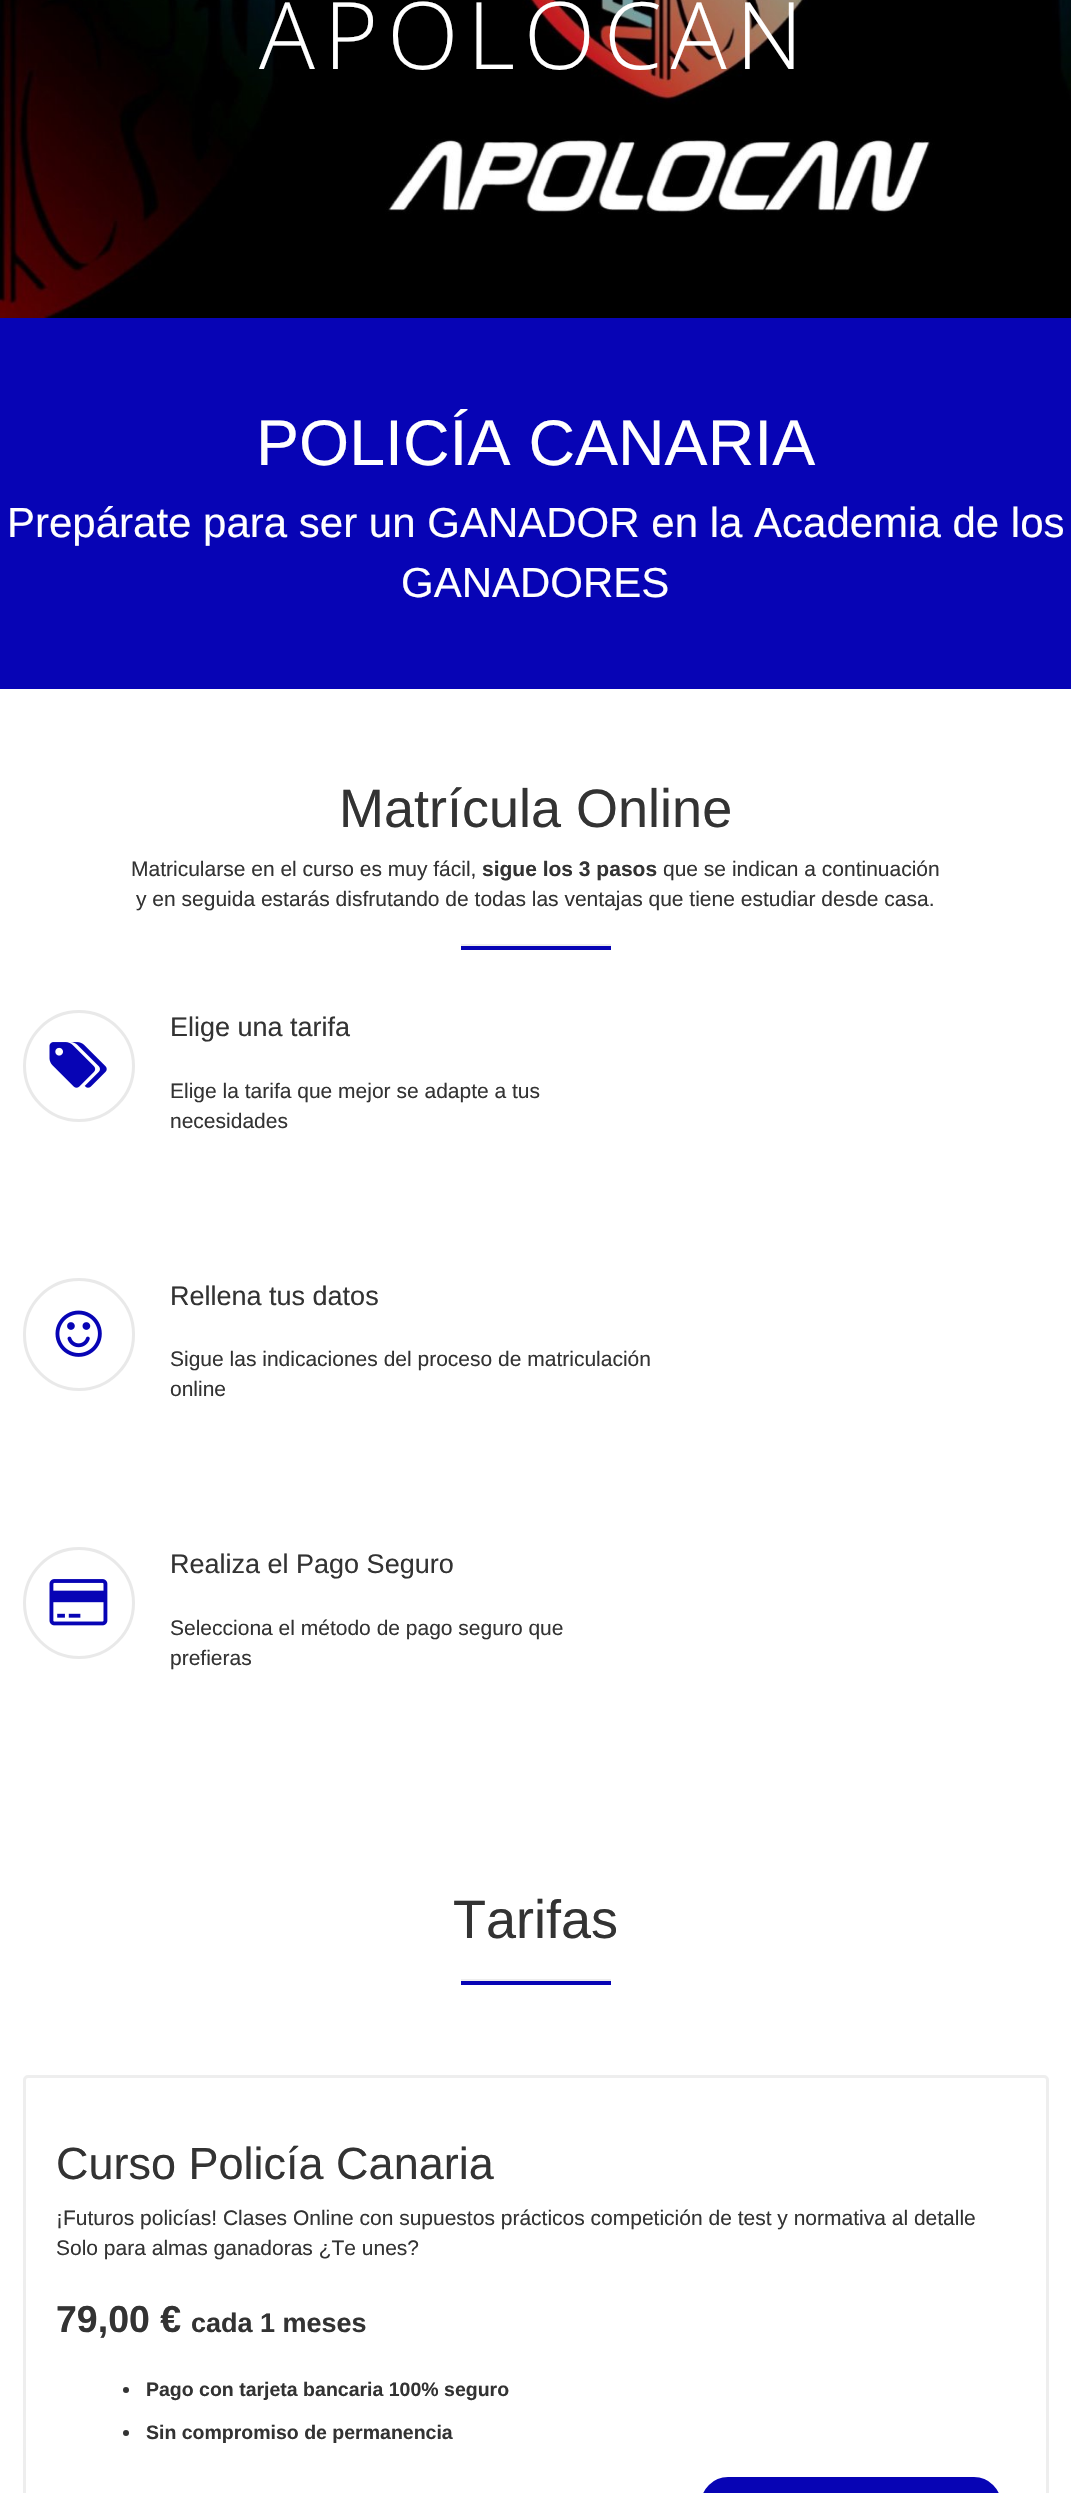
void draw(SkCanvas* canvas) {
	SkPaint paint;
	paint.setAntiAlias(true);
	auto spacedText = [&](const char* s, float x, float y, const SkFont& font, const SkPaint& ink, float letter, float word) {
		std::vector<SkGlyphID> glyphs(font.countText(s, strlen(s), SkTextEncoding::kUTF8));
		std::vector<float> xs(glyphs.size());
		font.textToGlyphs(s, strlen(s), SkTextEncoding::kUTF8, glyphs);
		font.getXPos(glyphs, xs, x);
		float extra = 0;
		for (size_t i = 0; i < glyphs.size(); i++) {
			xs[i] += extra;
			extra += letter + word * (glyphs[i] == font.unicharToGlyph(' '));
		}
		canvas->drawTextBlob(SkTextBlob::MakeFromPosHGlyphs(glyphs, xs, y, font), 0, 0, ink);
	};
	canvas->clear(0xffffffff);
	canvas->drawImageRect(SkImages::DeferredFromEncodedData(SkData::MakeFromFileName("img1.png")), SkRect::MakeXYWH(0, 0, 1071, 318), SkSamplingOptions());
	SkFont f1(fontMgr->matchFamilyStyle("Open Sans", SkFontStyle(300, SkFontStyle::kNormal_Width, SkFontStyle::kUpright_Slant)), 93);
	f1.setSubpixel(true);
	paint.setColor(0xffffffff);
	spacedText("APOLOCAN", 259, 69, f1, paint, 9, 0);
	paint.setColor(0xff0704b5);
	canvas->drawRect(SkRect::MakeXYWH(0, 318, 1071, 371), paint);
	SkFont f2(fontMgr->matchFamilyStyle("Liberation Sans", SkFontStyle::Normal()), 64.5);
	f2.setSubpixel(true);
	paint.setColor(0xffffffff);
	canvas->drawString("POLICÍA CANARIA", 256, 465, f2, paint);
	SkFont f3(fontMgr->matchFamilyStyle("Liberation Sans", SkFontStyle::Normal()), 42);
	f3.setSubpixel(true);
	canvas->drawString("Prepárate para ser un GANADOR en la Academia de los", 7, 537, f3, paint);
	canvas->drawString("GANADORES", 401, 597, f3, paint);
	SkFont f4(fontMgr->matchFamilyStyle("Liberation Sans", SkFontStyle::Normal()), 54);
	f4.setSubpixel(true);
	paint.setColor(0xff333333);
	canvas->drawString("Matrícula Online", 339, 827, f4, paint);
	SkFont f5(fontMgr->matchFamilyStyle("Liberation Sans", SkFontStyle::Normal()), 21);
	f5.setSubpixel(true);
	canvas->drawString("Matricularse en el curso es muy fácil,", 131, 876, f5, paint);
	SkFont f6(fontMgr->matchFamilyStyle("Liberation Sans", SkFontStyle::Bold()), 21);
	f6.setSubpixel(true);
	canvas->drawString("sigue los 3 pasos", 482, 876, f6, paint);
	canvas->drawString("que se indican a continuación", 663, 876, f5, paint);
	canvas->drawString("y en seguida estarás disfrutando de todas las ventajas que tiene estudiar desde casa.", 136, 906, f5, paint);
	paint.setColor(0xff0704b5);
	canvas->drawRect(SkRect::MakeXYWH(461, 946, 150, 4), paint);
	paint.setColor(0xffeeeeee);
	canvas->drawRect(SkRect::MakeXYWH(461, 944, 150, 2), paint);
	paint.setStroke(true);
	paint.setStrokeWidth(3);
	paint.setColor(0xffe9e9e9);
	canvas->drawCircle(79, 1066, 54.5, paint);
	canvas->drawImageRect(SkImages::DeferredFromEncodedData(SkData::MakeFromFileName("img2.png")), SkRect::MakeXYWH(49, 1042, 58, 46), SkSamplingOptions());
	SkFont f7(fontMgr->matchFamilyStyle("Liberation Sans", SkFontStyle::Normal()), 27);
	f7.setSubpixel(true);
	paint.setStroke(false);
	paint.setColor(0xff333333);
	canvas->drawString("Elige una tarifa", 170, 1036, f7, paint);
	canvas->drawString("Elige la tarifa que mejor se adapte a tus", 170, 1098, f5, paint);
	canvas->drawString("necesidades", 170, 1128, f5, paint);
	paint.setStroke(true);
	paint.setColor(0xffe9e9e9);
	canvas->drawRoundRect(SkRect::MakeXYWH(24.5, 1279.5, 109, 110), 54.5, 54.5, paint);
	canvas->drawImageRect(SkImages::DeferredFromEncodedData(SkData::MakeFromFileName("img3.png")), SkRect::MakeXYWH(55, 1310, 47, 47), SkSamplingOptions());
	paint.setStroke(false);
	paint.setColor(0xff333333);
	canvas->drawString("Rellena tus datos", 170, 1305, f7, paint);
	canvas->drawString("Sigue las indicaciones del proceso de matriculación", 170, 1366, f5, paint);
	canvas->drawString("online", 170, 1396, f5, paint);
	paint.setStroke(true);
	paint.setColor(0xffe9e9e9);
	canvas->drawCircle(79, 1603, 54.5, paint);
	canvas->drawImageRect(SkImages::DeferredFromEncodedData(SkData::MakeFromFileName("img4.png")), SkRect::MakeXYWH(49, 1579, 59, 47), SkSamplingOptions());
	paint.setStroke(false);
	paint.setColor(0xff333333);
	canvas->drawString("Realiza el Pago Seguro", 170, 1573, f7, paint);
	canvas->drawString("Selecciona el método de pago seguro que", 170, 1635, f5, paint);
	canvas->drawString("prefieras", 170, 1665, f5, paint);
	canvas->drawString("Tarifas", 453, 1938, f4, paint);
	paint.setColor(0xff0704b5);
	canvas->drawRect(SkRect::MakeXYWH(461, 1981, 150, 4), paint);
	paint.setColor(0xffeeeeee);
	canvas->drawRect(SkRect::MakeXYWH(461, 1979, 150, 2), paint);
	paint.setStroke(true);
	canvas->drawRoundRect(SkRect::MakeXYWH(24.5, 2076.5, 1023, 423), 3.5, 3.5, paint);
	SkFont f8(fontMgr->matchFamilyStyle("Liberation Sans", SkFontStyle::Normal()), 45);
	f8.setSubpixel(true);
	paint.setStroke(false);
	paint.setColor(0xff333333);
	canvas->drawString("Curso Policía Canaria", 56, 2179, f8, paint);
	canvas->drawString("¡Futuros policías! Clases Online con supuestos prácticos competición de test y normativa al detalle", 56, 2225, f5, paint);
	canvas->drawString("Solo para almas ganadoras ¿Te unes?", 56, 2255, f5, paint);
	SkFont f9(fontMgr->matchFamilyStyle("Liberation Sans", SkFontStyle::Bold()), 37.5);
	f9.setSubpixel(true);
	canvas->drawString("79,00 €", 56, 2332, f9, paint);
	SkFont f10(fontMgr->matchFamilyStyle("Liberation Sans", SkFontStyle::Bold()), 27);
	f10.setSubpixel(true);
	canvas->drawString("cada 1 meses", 191, 2332, f10, paint);
	canvas->drawCircle(126, 2390, 3, paint);
	SkFont f11(fontMgr->matchFamilyStyle("Liberation Sans", SkFontStyle::Bold()), 19.5);
	f11.setSubpixel(true);
	canvas->drawString("Pago con tarjeta bancaria 100% seguro", 146, 2396, f11, paint);
	canvas->drawCircle(126, 2433, 3, paint);
	canvas->drawString("Sin compromiso de permanencia", 146, 2439, f11, paint);
	paint.setColor(0xff0704b5);
	canvas->drawRoundRect(SkRect::MakeXYWH(702, 2478, 298, 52), 35, 35, paint);
	paint.setStroke(true);
	paint.setStrokeWidth(2);
	canvas->drawRoundRect(SkRect::MakeXYWH(702, 2478, 298, 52), 35, 35, paint);
}
